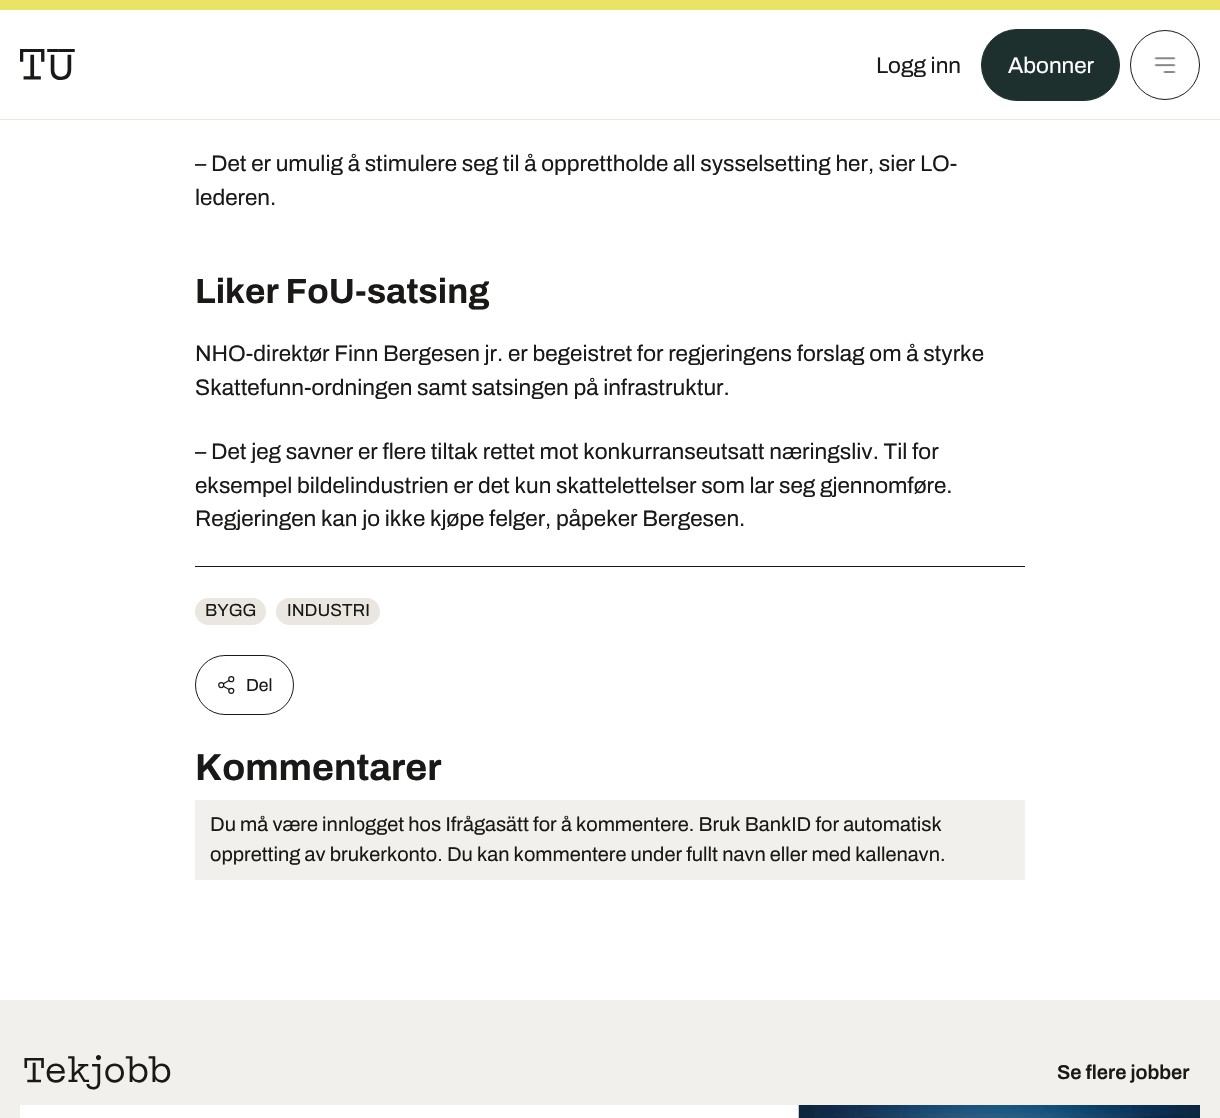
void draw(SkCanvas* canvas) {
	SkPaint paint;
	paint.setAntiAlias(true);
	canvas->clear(0xffffffff);
	paint.setColor(0xffe9e463);
	canvas->drawRect(SkRect::MakeXYWH(0, 0, 1220, 10), paint);
	paint.setColor(0xffe9e7e0);
	canvas->drawRect(SkRect::MakeXYWH(0, 119, 1220, 1), paint);
	canvas->drawImageRect(SkImages::DeferredFromEncodedData(SkData::MakeFromFileName("img1.png")), SkRect::MakeXYWH(20, 49, 55, 31), SkSamplingOptions());
	SkFont f1(fontMgr->matchFamilyStyle("Archivo", SkFontStyle::Normal()), 22.5);
	f1.setSubpixel(true);
	paint.setColor(0xff1b1917);
	canvas->drawString("Logg inn", 876, 73, f1, paint);
	paint.setColor(0xff1d302e);
	canvas->drawRoundRect(SkRect::MakeXYWH(981.5, 29.5, 138, 71), 35.5, 35.5, paint);
	paint.setStroke(true);
	paint.setStrokeWidth(1);
	canvas->drawRoundRect(SkRect::MakeXYWH(981.5, 29.5, 138, 71), 35.5, 35.5, paint);
	paint.setStroke(false);
	paint.setColor(0xffffffff);
	canvas->drawString("Abonner", 1008, 73, f1, paint);
	paint.setStroke(true);
	paint.setColor(0xff1b1917);
	canvas->drawCircle(1165, 65, 34.5, paint);
	canvas->drawImageRect(SkImages::DeferredFromEncodedData(SkData::MakeFromFileName("img2.png")), SkRect::MakeXYWH(1154, 57, 22, 16), SkSamplingOptions());
	paint.setStroke(false);
	canvas->drawString("– Det er umulig å stimulere seg til å opprettholde all sysselsetting her, sier LO-", 195, 171, f1, paint);
	canvas->drawString("lederen.", 195, 205, f1, paint);
	SkFont f2(fontMgr->matchFamilyStyle("Archivo", SkFontStyle::Bold()), 35);
	f2.setSubpixel(true);
	canvas->drawString("Liker FoU-satsing", 195, 303, f2, paint);
	canvas->drawString("NHO-direktør Finn Bergesen jr. er begeistret for regjeringens forslag om å styrke", 195, 361, f1, paint);
	canvas->drawString("Skattefunn-ordningen samt satsingen på infrastruktur.", 195, 395, f1, paint);
	canvas->drawString("– Det jeg savner er flere tiltak rettet mot konkurranseutsatt næringsliv. Til for", 195, 459, f1, paint);
	canvas->drawString("eksempel bildelindustrien er det kun skattelettelser som lar seg gjennomføre.", 195, 493, f1, paint);
	canvas->drawString("Regjeringen kan jo ikke kjøpe felger, påpeker Bergesen.", 195, 526, f1, paint);
	canvas->drawRect(SkRect::MakeXYWH(195, 566, 830, 1), paint);
	paint.setColor(0xffe9e7e0);
	canvas->drawRoundRect(SkRect::MakeXYWH(195, 598, 71, 27), 13.5, 13.5, paint);
	SkFont f3(fontMgr->matchFamilyStyle("Archivo", SkFontStyle::Normal()), 17.5);
	f3.setSubpixel(true);
	paint.setColor(0xff1b1917);
	canvas->drawString("BYGG", 205, 616, f3, paint);
	paint.setColor(0xffe9e7e0);
	canvas->drawRoundRect(SkRect::MakeXYWH(276, 598, 104, 27), 13.5, 13.5, paint);
	paint.setColor(0xff1b1917);
	canvas->drawString("INDUSTRI", 287, 616, f3, paint);
	paint.setStroke(true);
	canvas->drawRoundRect(SkRect::MakeXYWH(195.5, 655.5, 98, 59), 29.5, 29.5, paint);
	canvas->drawImageRect(SkImages::DeferredFromEncodedData(SkData::MakeFromFileName("img3.png")), SkRect::MakeXYWH(218, 676, 17, 18), SkSamplingOptions());
	paint.setStroke(false);
	canvas->drawString("Del", 246, 691, f3, paint);
	SkFont f4(fontMgr->matchFamilyStyle("Archivo", SkFontStyle::Bold()), 37.5);
	f4.setSubpixel(true);
	canvas->drawString("Kommentarer", 195, 780, f4, paint);
	paint.setColor(0xfff2f0ec);
	canvas->drawRect(SkRect::MakeXYWH(195, 800, 830, 80), paint);
	SkFont f5(fontMgr->matchFamilyStyle("Archivo", SkFontStyle::Normal()), 20);
	f5.setSubpixel(true);
	paint.setColor(0xff1b1917);
	canvas->drawString("Du må være innlogget hos Ifrågasätt for å kommentere. Bruk BankID for automatisk", 210, 831, f5, paint);
	canvas->drawString("oppretting av brukerkonto. Du kan kommentere under fullt navn eller med kallenavn.", 210, 861, f5, paint);
	paint.setColor(0xfff2f0ec);
	canvas->drawRect(SkRect::MakeXYWH(0, 1000, 1220, 118), paint);
	canvas->drawImageRect(SkImages::DeferredFromEncodedData(SkData::MakeFromFileName("img4.png")), SkRect::MakeXYWH(24, 1055, 147, 35), SkSamplingOptions());
	SkFont f6(fontMgr->matchFamilyStyle("Archivo", SkFontStyle(600, SkFontStyle::kNormal_Width, SkFontStyle::kUpright_Slant)), 20);
	f6.setSubpixel(true);
	paint.setColor(0xff1b1917);
	canvas->drawString("Se flere jobber", 1057, 1079, f6, paint);
	paint.setColor(0xffffffff);
	canvas->drawRect(SkRect::MakeXYWH(20, 1105, 779, 13), paint);
	canvas->drawImageRect(SkImages::DeferredFromEncodedData(SkData::MakeFromFileName("img5.png")), SkRect::MakeXYWH(798, 1105, 402, 13), SkSamplingOptions());
}
